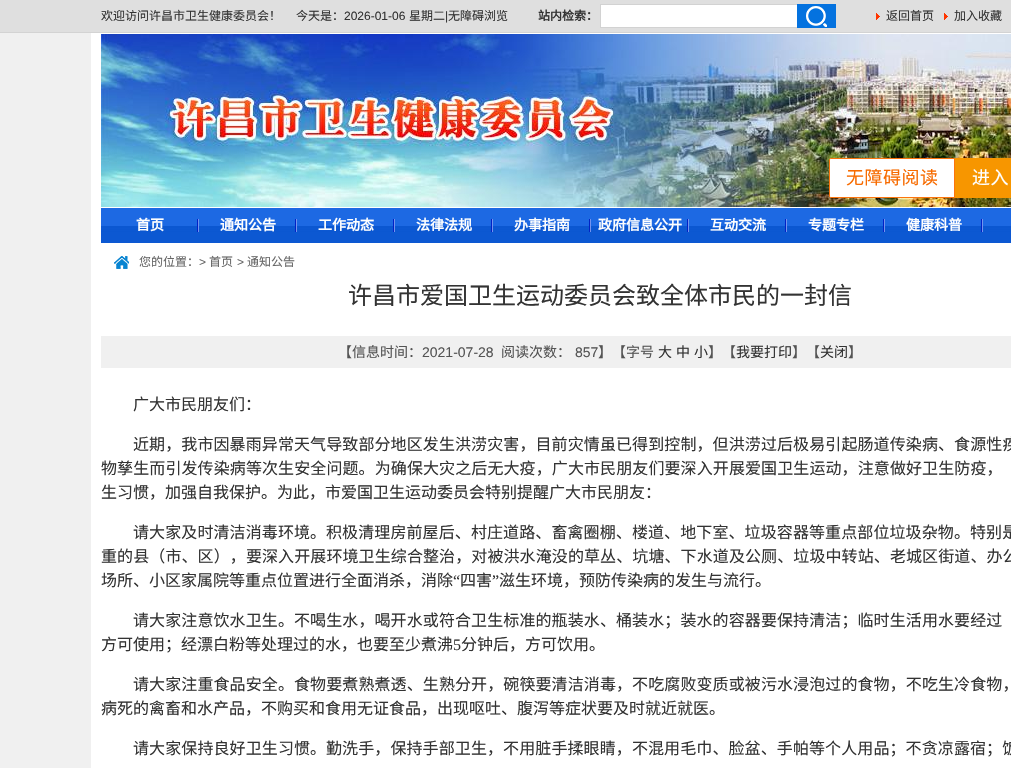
void draw(SkCanvas* canvas) {
	SkPaint paint;
	paint.setAntiAlias(true);
	auto spacedText = [&](const char* s, float x, float y, const SkFont& font, const SkPaint& ink, float letter, float word) {
		std::vector<SkGlyphID> glyphs(font.countText(s, strlen(s), SkTextEncoding::kUTF8));
		std::vector<float> xs(glyphs.size());
		font.textToGlyphs(s, strlen(s), SkTextEncoding::kUTF8, glyphs);
		font.getXPos(glyphs, xs, x);
		float extra = 0;
		for (size_t i = 0; i < glyphs.size(); i++) {
			xs[i] += extra;
			extra += letter + word * (glyphs[i] == font.unicharToGlyph(' '));
		}
		canvas->drawTextBlob(SkTextBlob::MakeFromPosHGlyphs(glyphs, xs, y, font), 0, 0, ink);
	};
	auto svgPath = [&](const char* data, bool evenOdd = false) {
		SkPath result = *SkParsePath::FromSVGString(data);
		if (evenOdd) result.setFillType(SkPathFillType::kEvenOdd);
		return result;
	};
	canvas->clear(0xfff0f0f0);
	paint.setColor(0xffdfdfdf);
	canvas->drawRect(SkRect::MakeXYWH(0, 0, 1011, 32), paint);
	paint.setColor(0xffd3d3d3);
	canvas->drawRect(SkRect::MakeXYWH(0, 32, 1011, 1), paint);
	SkFont f1(fontMgr->matchFamilyStyle("Noto Sans CJK SC", SkFontStyle::Normal()), 12);
	f1.setSubpixel(true);
	paint.setColor(0xff333333);
	canvas->drawString("欢迎访问许昌市卫生健康委员会！", 101, 20, f1, paint);
	canvas->drawString("今天是：", 296, 20, f1, paint);
	SkFont f2(fontMgr->matchFamilyStyle("Liberation Sans", SkFontStyle::Normal()), 12);
	f2.setSubpixel(true);
	canvas->drawString("2026-01-06", 344, 20, f2, paint);
	canvas->drawString("星期二", 409, 20, f1, paint);
	canvas->drawString("|", 445, 20, f2, paint);
	canvas->drawString("无障碍浏览", 448, 20, f1, paint);
	SkFont f3(fontMgr->matchFamilyStyle("Noto Sans CJK SC", SkFontStyle::Bold()), 12);
	f3.setSubpixel(true);
	canvas->drawString("站内检索：", 538, 20, f3, paint);
	paint.setColor(0xffffffff);
	canvas->drawRect(SkRect::MakeXYWH(601, 5, 196, 22), paint);
	paint.setColor(0xffd2d2d2);
	canvas->drawRect(SkRect::MakeXYWH(600, 4, 197, 1), paint);
	canvas->drawRect(SkRect::MakeXYWH(600, 27, 197, 1), paint);
	canvas->drawRect(SkRect::MakeXYWH(600, 4, 1, 24), paint);
	paint.setColor(0xff0472df);
	canvas->drawRect(SkRect::MakeXYWH(797, 4, 39, 24), paint);
	canvas->drawImageRect(SkImages::DeferredFromEncodedData(SkData::MakeFromFileName("img1.png")), SkRect::MakeXYWH(806, 6, 21, 21), SkSamplingOptions());
	canvas->drawImageRect(SkImages::DeferredFromEncodedData(SkData::MakeFromFileName("img2.png")), SkRect::MakeXYWH(876, 13, 4, 7), SkSamplingOptions());
	paint.setColor(0xff333333);
	canvas->drawString("返回首页", 886, 20, f1, paint);
	canvas->drawImageRect(SkImages::DeferredFromEncodedData(SkData::MakeFromFileName("img2.png")), SkRect::MakeXYWH(944, 13, 4, 7), SkSamplingOptions());
	canvas->drawString("加入收藏", 954, 20, f1, paint);
	paint.setColor(0xffffffff);
	canvas->drawRect(SkRect::MakeXYWH(91, 33, 920, 175), paint);
	canvas->drawImageRect(SkImages::DeferredFromEncodedData(SkData::MakeFromFileName("img3.png")), SkRect::MakeXYWH(101, 34, 910, 173), SkSamplingOptions());
	canvas->drawPath(svgPath("M831 158.5H954.5V197.5H831C830 197.5 829.5 197 829.5 196V160C829.5 159 830 158.5 831 158.5Z"), paint);
	paint.setStroke(true);
	paint.setStrokeWidth(1);
	paint.setColor(0xfffc740d);
	canvas->drawPath(svgPath("M831 158.5H954.5V197.5H831C830 197.5 829.5 197 829.5 196V160C829.5 159 830 158.5 831 158.5Z"), paint);
	SkFont f4(fontMgr->matchFamilyStyle("Noto Sans CJK SC", SkFontStyle::Normal()), 18);
	f4.setSubpixel(true);
	paint.setStroke(false);
	paint.setColor(0xfff76b00);
	spacedText("无障碍阅读", 846, 184, f4, paint, 0.5, 0);
	paint.setColor(0xfff79600);
	canvas->drawRect(SkRect::MakeXYWH(955, 158, 56, 40), paint);
	paint.setColor(0xffffffff);
	spacedText("进入", 972, 184, f4, paint, 0.5, 0);
	canvas->drawRect(SkRect::MakeXYWH(91, 208, 10, 35), paint);
	canvas->drawImageRect(SkImages::DeferredFromEncodedData(SkData::MakeFromFileName("img4.png")), SkRect::MakeXYWH(101, 208, 910, 35), SkSamplingOptions());
	canvas->drawImageRect(SkImages::DeferredFromEncodedData(SkData::MakeFromFileName("img5.png")), SkRect::MakeXYWH(197, 219, 2, 13), SkSamplingOptions());
	SkFont f5(fontMgr->matchFamilyStyle("Noto Sans CJK SC", SkFontStyle::Bold()), 14);
	f5.setSubpixel(true);
	canvas->drawString("首页", 136, 230, f5, paint);
	canvas->drawImageRect(SkImages::DeferredFromEncodedData(SkData::MakeFromFileName("img5.png")), SkRect::MakeXYWH(295, 219, 2, 13), SkSamplingOptions());
	canvas->drawString("通知公告", 220, 230, f5, paint);
	canvas->drawImageRect(SkImages::DeferredFromEncodedData(SkData::MakeFromFileName("img5.png")), SkRect::MakeXYWH(393, 219, 2, 13), SkSamplingOptions());
	canvas->drawString("工作动态", 318, 230, f5, paint);
	canvas->drawImageRect(SkImages::DeferredFromEncodedData(SkData::MakeFromFileName("img5.png")), SkRect::MakeXYWH(491, 219, 2, 13), SkSamplingOptions());
	canvas->drawString("法律法规", 416, 230, f5, paint);
	canvas->drawImageRect(SkImages::DeferredFromEncodedData(SkData::MakeFromFileName("img5.png")), SkRect::MakeXYWH(589, 219, 2, 13), SkSamplingOptions());
	canvas->drawString("办事指南", 514, 230, f5, paint);
	canvas->drawImageRect(SkImages::DeferredFromEncodedData(SkData::MakeFromFileName("img5.png")), SkRect::MakeXYWH(687, 219, 2, 13), SkSamplingOptions());
	canvas->drawString("政府信息公开", 598, 230, f5, paint);
	canvas->drawImageRect(SkImages::DeferredFromEncodedData(SkData::MakeFromFileName("img5.png")), SkRect::MakeXYWH(785, 219, 2, 13), SkSamplingOptions());
	canvas->drawString("互动交流", 710, 230, f5, paint);
	canvas->drawImageRect(SkImages::DeferredFromEncodedData(SkData::MakeFromFileName("img5.png")), SkRect::MakeXYWH(883, 219, 2, 13), SkSamplingOptions());
	canvas->drawString("专题专栏", 808, 230, f5, paint);
	canvas->drawImageRect(SkImages::DeferredFromEncodedData(SkData::MakeFromFileName("img5.png")), SkRect::MakeXYWH(981, 219, 2, 13), SkSamplingOptions());
	canvas->drawString("健康科普", 906, 230, f5, paint);
	canvas->drawRect(SkRect::MakeXYWH(91, 243, 920, 525), paint);
	canvas->drawImageRect(SkImages::DeferredFromEncodedData(SkData::MakeFromFileName("img6.png")), SkRect::MakeXYWH(114, 256, 15, 13), SkSamplingOptions());
	paint.setColor(0xff666666);
	canvas->drawString("您的位置：", 139, 266, f1, paint);
	canvas->drawString(">", 199, 266, f2, paint);
	canvas->drawString("首页", 209, 266, f1, paint);
	canvas->drawString(">", 237, 266, f2, paint);
	canvas->drawString("通知公告", 247, 266, f1, paint);
	SkFont f6(fontMgr->matchFamilyStyle("Noto Sans CJK SC", SkFontStyle::Normal()), 24);
	f6.setSubpixel(true);
	paint.setColor(0xff333333);
	canvas->drawString("许昌市爱国卫生运动委员会致全体市民的一封信", 348, 304, f6, paint);
	paint.setColor(0xfff0f0f0);
	canvas->drawRect(SkRect::MakeXYWH(101, 336, 910, 32), paint);
	SkFont f7(fontMgr->matchFamilyStyle("Noto Sans CJK SC", SkFontStyle::Normal()), 14);
	f7.setSubpixel(true);
	paint.setColor(0xff545454);
	canvas->drawString("【信息时间：", 338, 357, f7, paint);
	SkFont f8(fontMgr->matchFamilyStyle("Liberation Sans", SkFontStyle::Normal()), 14);
	f8.setSubpixel(true);
	canvas->drawString("2021-07-28", 422, 357, f8, paint);
	canvas->drawString("阅读次数：", 501, 357, f7, paint);
	canvas->drawString("857", 575, 357, f8, paint);
	canvas->drawString("】【字号", 598, 357, f7, paint);
	paint.setColor(0xff333333);
	canvas->drawString("大", 658, 357, f7, paint);
	canvas->drawString("中", 676, 357, f7, paint);
	canvas->drawString("小", 694, 357, f7, paint);
	paint.setColor(0xff545454);
	canvas->drawString("】【", 708, 357, f7, paint);
	paint.setColor(0xff333333);
	canvas->drawString("我要打印", 736, 357, f7, paint);
	paint.setColor(0xff545454);
	canvas->drawString("】【", 792, 357, f7, paint);
	paint.setColor(0xff333333);
	canvas->drawString("关闭", 820, 357, f7, paint);
	paint.setColor(0xff545454);
	canvas->drawString("】", 848, 357, f7, paint);
	SkFont f9(fontMgr->matchFamilyStyle("Noto Sans CJK SC", SkFontStyle::Normal()), 16);
	f9.setSubpixel(true);
	paint.setColor(0xff333333);
	canvas->drawString("广大市民朋友们：", 133, 410, f9, paint);
	spacedText("近期，我市因暴雨异常天气导致部分地区发生洪涝灾害，目前灾情虽已得到控制，但洪涝过后极易引起肠道传染病、食源性疾", 133, 450, f9, paint, 0.1, 0);
	spacedText("物孳生而引发传染病等次生安全问题。为确保大灾之后无大疫，广大市民朋友们要深入开展爱国卫生运动，注意做好卫生防疫，", 101, 474, f9, paint, 0.1, 0);
	canvas->drawString("生习惯，加强自我保护。为此，市爱国卫生运动委员会特别提醒广大市民朋友：", 101, 498, f9, paint);
	spacedText("请大家及时清洁消毒环境。", 133, 538, f9, paint, 0.1, 0);
	spacedText("积极清理房前屋后、村庄道路、畜禽圈棚、楼道、地下室、垃圾容器等重点部位垃圾杂物。特别是", 326, 538, f9, paint, 0.1, 0);
	spacedText("重的县（市、区），要深入开展环境卫生综合整治，对被洪水淹没的草丛、坑塘、下水道及公厕、垃圾中转站、老城区街道、办公", 101, 562, f9, paint, 0.1, 0);
	canvas->drawString("场所、小区家属院等重点位置进行全面消杀，消除", 101, 586, f9, paint);
	SkFont f10(fontMgr->matchFamilyStyle("Liberation Serif", SkFontStyle::Normal()), 16);
	f10.setSubpixel(true);
	canvas->drawString("“", 453, 586, f10, paint);
	canvas->drawString("四害", 460, 586, f9, paint);
	canvas->drawString("”", 492, 586, f10, paint);
	canvas->drawString("滋生环境，预防传染病的发生与流行。", 499, 586, f9, paint);
	spacedText("请大家注意饮水卫生。", 133, 626, f9, paint, 0.1, 0);
	spacedText("不喝生水，喝开水或符合卫生标准的瓶装水、桶装水；装水的容器要保持清洁；临时生活用水要经过", 294, 626, f9, paint, 0.1, 0);
	canvas->drawString("方可使用；经漂白粉等处理过的水，也要至少煮沸", 101, 650, f9, paint);
	canvas->drawString("5", 453, 650, f10, paint);
	canvas->drawString("分钟后，方可饮用。", 461, 650, f9, paint);
	spacedText("请大家注重食品安全。", 133, 690, f9, paint, 0.1, 0);
	spacedText("食物要煮熟煮透、生熟分开，碗筷要清洁消毒，不吃腐败变质或被污水浸泡过的食物，不吃生冷食物，", 294, 690, f9, paint, 0.1, 0);
	canvas->drawString("病死的禽畜和水产品，不购买和食用无证食品，出现呕吐、腹泻等症状要及时就近就医。", 101, 714, f9, paint);
	spacedText("请大家保持良好卫生习惯。", 133, 754, f9, paint, 0.1, 0);
	spacedText("勤洗手，保持手部卫生，不用脏手揉眼睛，不混用毛巾、脸盆、手帕等个人用品；不贪凉露宿；饭", 326, 754, f9, paint, 0.1, 0);
}
